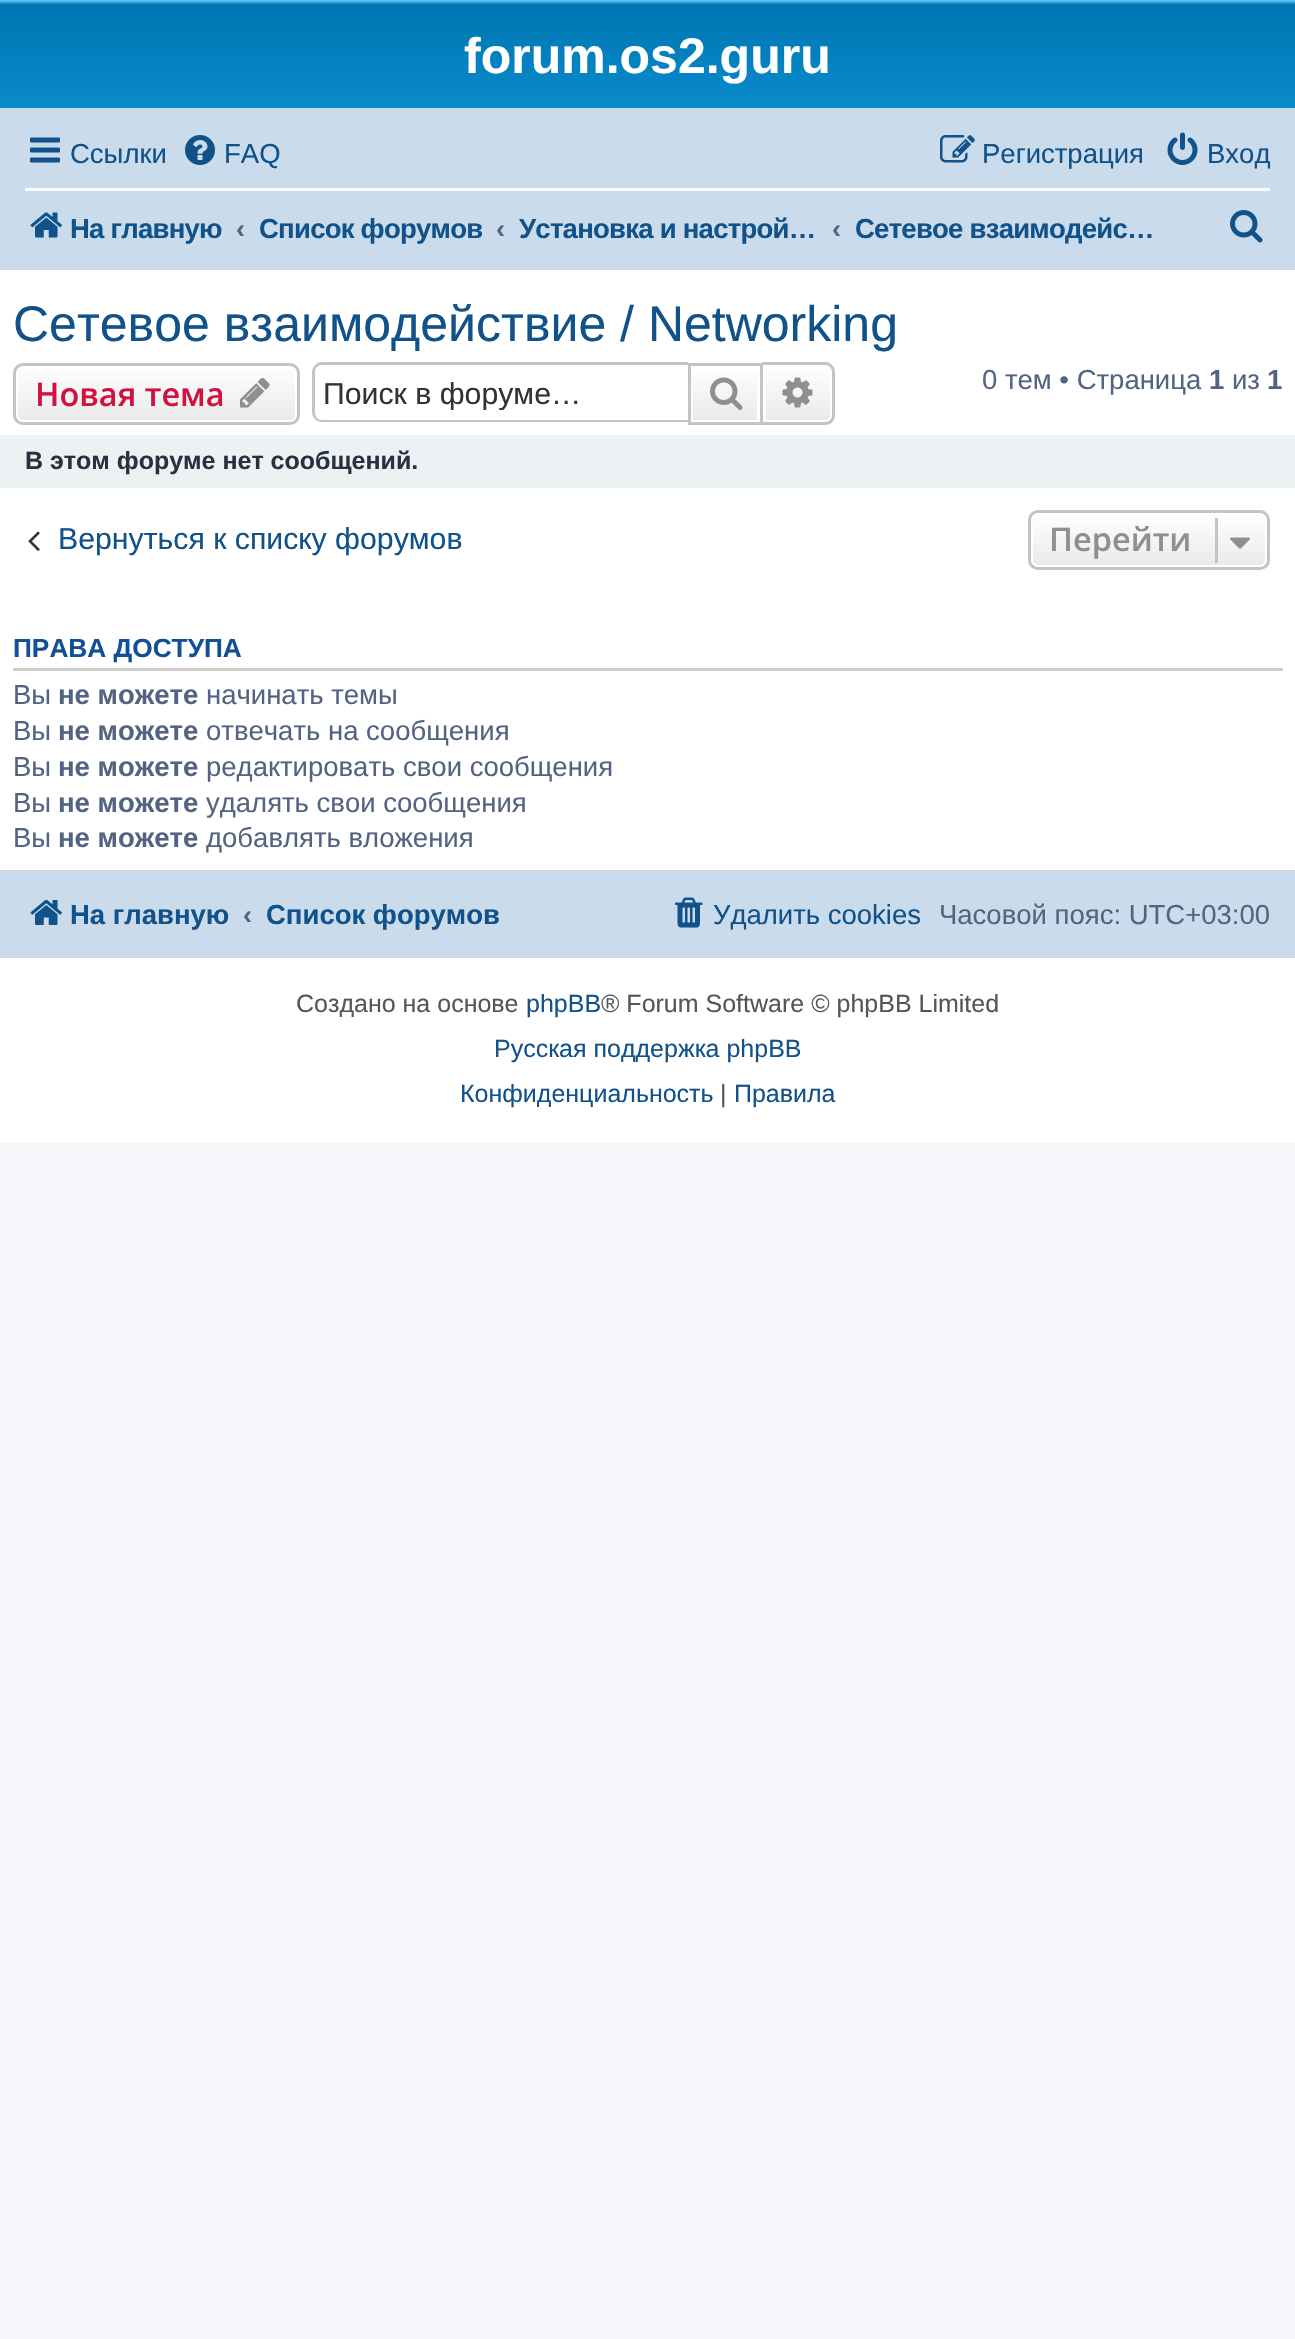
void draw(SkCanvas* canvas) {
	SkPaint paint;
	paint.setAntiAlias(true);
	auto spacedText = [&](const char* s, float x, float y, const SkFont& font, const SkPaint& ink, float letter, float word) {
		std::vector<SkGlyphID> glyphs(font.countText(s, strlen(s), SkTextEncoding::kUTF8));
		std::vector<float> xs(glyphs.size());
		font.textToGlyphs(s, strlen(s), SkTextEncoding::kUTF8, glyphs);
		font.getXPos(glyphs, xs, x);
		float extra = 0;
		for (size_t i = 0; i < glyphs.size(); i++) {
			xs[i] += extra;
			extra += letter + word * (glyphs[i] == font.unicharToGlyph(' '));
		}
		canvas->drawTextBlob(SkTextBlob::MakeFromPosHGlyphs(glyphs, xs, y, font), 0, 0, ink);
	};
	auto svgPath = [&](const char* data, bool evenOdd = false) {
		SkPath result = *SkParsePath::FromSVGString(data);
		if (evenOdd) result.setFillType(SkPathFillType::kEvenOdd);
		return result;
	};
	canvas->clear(0xfff5f7fa);
	paint.setColor(0xffffffff);
	canvas->drawRect(SkRect::MakeXYWH(0, 270, 1295, 873), paint);
	{
		const SkColor colors[] = {0xff6aceff, 0xff0076b1, 0xff12a3eb};
		const float stops[] = {0, 0.02, 1};
		const SkPoint ends[] = {{648, 0}, {648, 230}};
		paint.setShader(SkGradientShader::MakeLinear(ends, colors, stops, 3, SkTileMode::kClamp));
		paint.setAlpha(255);
	}
	canvas->drawRect(SkRect::MakeXYWH(0, 0, 1295, 108), paint);
	SkFont f1(fontMgr->matchFamilyStyle("Liberation Sans", SkFontStyle::Bold()), 50);
	f1.setSubpixel(true);
	paint.setShader(nullptr);
	paint.setColor(0xffffffff);
	canvas->drawString("forum.os2.guru", 464, 73, f1, paint);
	paint.setColor(0xffcadceb);
	canvas->drawRect(SkRect::MakeXYWH(0, 108, 1295, 162), paint);
	canvas->drawImageRect(SkImages::DeferredFromEncodedData(SkData::MakeFromFileName("img1.png")), SkRect::MakeXYWH(30, 137, 30, 26), SkSamplingOptions());
	SkFont f2(fontMgr->matchFamilyStyle("Liberation Sans", SkFontStyle::Normal()), 27.5);
	f2.setSubpixel(true);
	paint.setColor(0xff105289);
	canvas->drawString("Ссылки", 70, 163, f2, paint);
	canvas->drawImageRect(SkImages::DeferredFromEncodedData(SkData::MakeFromFileName("img2.png")), SkRect::MakeXYWH(185, 135, 30, 30), SkSamplingOptions());
	canvas->drawString("FAQ", 224, 163, f2, paint);
	canvas->drawImageRect(SkImages::DeferredFromEncodedData(SkData::MakeFromFileName("img3.png")), SkRect::MakeXYWH(940, 135, 35, 28), SkSamplingOptions());
	canvas->drawString("Регистрация", 982, 163, f2, paint);
	canvas->drawImageRect(SkImages::DeferredFromEncodedData(SkData::MakeFromFileName("img4.png")), SkRect::MakeXYWH(1167, 132, 31, 33), SkSamplingOptions());
	canvas->drawString("Вход", 1207, 163, f2, paint);
	paint.setColor(0xffffffff);
	canvas->drawRect(SkRect::MakeXYWH(25, 188, 1245, 3), paint);
	canvas->drawImageRect(SkImages::DeferredFromEncodedData(SkData::MakeFromFileName("img5.png")), SkRect::MakeXYWH(30, 212, 32, 26), SkSamplingOptions());
	SkFont f3(fontMgr->matchFamilyStyle("Liberation Sans", SkFontStyle::Bold()), 27.5);
	f3.setSubpixel(true);
	paint.setColor(0xff105289);
	spacedText("На главную", 70, 238, f3, paint, -0.75, 0);
	paint.setColor(0xff536482);
	canvas->drawString("‹", 236, 238, f3, paint);
	paint.setColor(0xff105289);
	spacedText("Список форумов", 259, 238, f3, paint, -0.75, 0);
	paint.setColor(0xff536482);
	canvas->drawString("‹", 496, 238, f3, paint);
	paint.setColor(0xff105289);
	spacedText("Установка и настрой…", 519, 238, f3, paint, -0.75, 0);
	paint.setColor(0xff536482);
	canvas->drawString("‹", 832, 238, f3, paint);
	paint.setColor(0xff105289);
	spacedText("Сетевое взаимодейс…", 855, 238, f3, paint, -0.75, 0);
	canvas->drawImageRect(SkImages::DeferredFromEncodedData(SkData::MakeFromFileName("img6.png")), SkRect::MakeXYWH(1230, 210, 33, 33), SkSamplingOptions());
	SkFont f4(fontMgr->matchFamilyStyle("Liberation Sans", SkFontStyle::Normal()), 50);
	f4.setSubpixel(true);
	canvas->drawString("Сетевое взаимодействие / Networking", 13, 341, f4, paint);
	canvas->save();
	canvas->clipPath(svgPath("M23 363H290C295.5 363 300 367.5 300 373V415C300 420.5 295.5 425 290 425H23C17.5 425 13 420.5 13 415V373C13 367.5 17.5 363 23 363Z"), true);
	{
		const SkColor colors[] = {0xffffffff, 0xffe9e9e9};
		const float stops[] = {0, 1};
		const SkPoint ends[] = {{156, 365}, {156, 423}};
		paint.setShader(SkGradientShader::MakeLinear(ends, colors, stops, 2, SkTileMode::kClamp));
		paint.setAlpha(255);
	}
	canvas->drawRect(SkRect::MakeXYWH(13, 365, 287, 58), paint);
	canvas->restore();
	paint.setStroke(true);
	paint.setStrokeWidth(3);
	paint.setShader(nullptr);
	paint.setColor(0xffffffff);
	canvas->drawRoundRect(SkRect::MakeXYWH(16.5, 366.5, 280, 55), 6.5, 6.5, paint);
	paint.setColor(0xffc7c3bf);
	canvas->drawRoundRect(SkRect::MakeXYWH(14.5, 364.5, 284, 59), 8.5, 8.5, paint);
	SkFont f5(fontMgr->matchFamilyStyle("Open Sans", SkFontStyle(600, SkFontStyle::kNormal_Width, SkFontStyle::kUpright_Slant)), 32.5);
	f5.setSubpixel(true);
	paint.setStroke(false);
	paint.setColor(0xffd31141);
	canvas->drawString("Новая тема", 35, 406, f5, paint);
	canvas->drawImageRect(SkImages::DeferredFromEncodedData(SkData::MakeFromFileName("img7.png")), SkRect::MakeXYWH(240, 377, 30, 31), SkSamplingOptions());
	paint.setColor(0xffc7c3bf);
	canvas->drawPath(svgPath("M322 362H688V422H322C317 422 312 418 312 412V372C312 367 317 362 322 362ZM322 365H688V420H322C318 420 315 417 315 412V372C315 368 318 365 322 365Z", true), paint);
	canvas->save();
	canvas->clipRect(SkRect::MakeXYWH(323, 375, 347, 35));
	SkFont f6(fontMgr->matchFamilyStyle("Liberation Sans", SkFontStyle::Normal()), 30.25);
	f6.setSubpixel(true);
	paint.setColor(0xff333333);
	canvas->drawString("Поиск в форуме…", 323, 404, f6, paint);
	canvas->restore();
	{
		const SkColor colors[] = {0xffffffff, 0xffe9e9e9};
		const float stops[] = {0, 1};
		const SkPoint ends[] = {{725, 365}, {725, 423}};
		paint.setShader(SkGradientShader::MakeLinear(ends, colors, stops, 2, SkTileMode::kClamp));
		paint.setAlpha(255);
	}
	canvas->drawRect(SkRect::MakeXYWH(693, 372, 64, 48), paint);
	paint.setStroke(true);
	paint.setShader(nullptr);
	paint.setColor(0xffc7c3bf);
	canvas->drawRect(SkRect::MakeXYWH(689.5, 364.5, 72, 59), paint);
	canvas->drawImageRect(SkImages::DeferredFromEncodedData(SkData::MakeFromFileName("img8.png")), SkRect::MakeXYWH(710, 377, 33, 33), SkSamplingOptions());
	paint.setStroke(false);
	{
		const SkColor colors[] = {0xffffffff, 0xffe9e9e9};
		const float stops[] = {0, 1};
		const SkPoint ends[] = {{798, 365}, {798, 423}};
		paint.setShader(SkGradientShader::MakeLinear(ends, colors, stops, 2, SkTileMode::kClamp));
		paint.setAlpha(255);
	}
	canvas->drawPath(svgPath("M764.5 366.5H825C828.5 366.5 831.5 369.5 831.5 373V415C831.5 418.5 828.5 421.5 825 421.5H764.5Z"), paint);
	paint.setStroke(true);
	paint.setShader(nullptr);
	paint.setColor(0xffffffff);
	canvas->drawPath(svgPath("M764.5 366.5H825C828.5 366.5 831.5 369.5 831.5 373V415C831.5 418.5 828.5 421.5 825 421.5H764.5Z"), paint);
	paint.setStroke(false);
	paint.setColor(0xffc7c3bf);
	canvas->drawPath(svgPath("M762 362H825C831 362 835 367 835 372V415C835 421 831 425 825 425H762ZM762 365H825C829 365 832 368 832 372V415C832 419 829 422 825 422H762Z", true), paint);
	canvas->drawImageRect(SkImages::DeferredFromEncodedData(SkData::MakeFromFileName("img9.png")), SkRect::MakeXYWH(782, 377, 31, 31), SkSamplingOptions());
	paint.setColor(0xff536482);
	canvas->drawString("0 тем • Страница", 982, 389, f2, paint);
	canvas->drawString("1", 1209, 389, f3, paint);
	canvas->drawString("из", 1232, 389, f2, paint);
	canvas->drawString("1", 1267, 389, f3, paint);
	paint.setColor(0xffecf1f3);
	canvas->drawRect(SkRect::MakeXYWH(0, 435, 1295, 53), paint);
	SkFont f7(fontMgr->matchFamilyStyle("Liberation Sans", SkFontStyle::Bold()), 25);
	f7.setSubpixel(true);
	paint.setColor(0xff28313f);
	canvas->drawString("В этом форуме нет сообщений.", 25, 469, f7, paint);
	canvas->drawImageRect(SkImages::DeferredFromEncodedData(SkData::MakeFromFileName("img10.png")), SkRect::MakeXYWH(28, 531, 12, 20), SkSamplingOptions());
	paint.setColor(0xff105289);
	canvas->drawString("Вернуться к списку форумов", 58, 549, f6, paint);
	canvas->save();
	canvas->clipPath(svgPath("M1038 510H1260C1265.5 510 1270 514.5 1270 520V560C1270 565.5 1265.5 570 1260 570H1038C1032.5 570 1028 565.5 1028 560V520C1028 514.5 1032.5 510 1038 510Z"), true);
	{
		const SkColor colors[] = {0xffffffff, 0xffe9e9e9};
		const float stops[] = {0, 1};
		const SkPoint ends[] = {{1149, 513}, {1149, 568}};
		paint.setShader(SkGradientShader::MakeLinear(ends, colors, stops, 2, SkTileMode::kClamp));
		paint.setAlpha(255);
	}
	canvas->drawRect(SkRect::MakeXYWH(1028, 513, 242, 55), paint);
	canvas->restore();
	paint.setStroke(true);
	paint.setShader(nullptr);
	paint.setColor(0xffffffff);
	canvas->drawRoundRect(SkRect::MakeXYWH(1031.5, 514.5, 235, 52), 6.5, 6.5, paint);
	paint.setColor(0xffc7c3bf);
	canvas->drawRoundRect(SkRect::MakeXYWH(1029.5, 511.5, 239, 57), 8.5, 8.5, paint);
	paint.setStroke(false);
	paint.setColor(0xff8f8f8f);
	canvas->drawString("Перейти", 1049, 551, f5, paint);
	paint.setColor(0xffc7c3bf);
	canvas->drawRect(SkRect::MakeXYWH(1215, 518, 3, 45), paint);
	canvas->drawImageRect(SkImages::DeferredFromEncodedData(SkData::MakeFromFileName("img11.png")), SkRect::MakeXYWH(1230, 537, 20, 12), SkSamplingOptions());
	paint.setColor(0xffcccccc);
	canvas->drawRect(SkRect::MakeXYWH(13, 668, 1270, 3), paint);
	SkFont f8(fontMgr->matchFamilyStyle("Liberation Sans", SkFontStyle::Bold()), 26.25);
	f8.setSubpixel(true);
	paint.setColor(0xff115098);
	canvas->drawString("ПРАВА ДОСТУПА", 13, 657, f8, paint);
	paint.setColor(0xff536482);
	canvas->drawString("Вы", 13, 704, f2, paint);
	canvas->drawString("не можете", 58, 704, f3, paint);
	canvas->drawString("начинать темы", 206, 704, f2, paint);
	canvas->drawString("Вы", 13, 740, f2, paint);
	canvas->drawString("не можете", 58, 740, f3, paint);
	canvas->drawString("отвечать на сообщения", 206, 740, f2, paint);
	canvas->drawString("Вы", 13, 776, f2, paint);
	canvas->drawString("не можете", 58, 776, f3, paint);
	canvas->drawString("редактировать свои сообщения", 206, 776, f2, paint);
	canvas->drawString("Вы", 13, 812, f2, paint);
	canvas->drawString("не можете", 58, 812, f3, paint);
	canvas->drawString("удалять свои сообщения", 206, 812, f2, paint);
	canvas->drawString("Вы", 13, 847, f2, paint);
	canvas->drawString("не можете", 58, 847, f3, paint);
	canvas->drawString("добавлять вложения", 206, 847, f2, paint);
	paint.setColor(0xffcadceb);
	canvas->drawRect(SkRect::MakeXYWH(0, 870, 1295, 88), paint);
	canvas->drawImageRect(SkImages::DeferredFromEncodedData(SkData::MakeFromFileName("img12.png")), SkRect::MakeXYWH(30, 899, 32, 26), SkSamplingOptions());
	paint.setColor(0xff105289);
	canvas->drawString("На главную", 70, 924, f3, paint);
	paint.setColor(0xff536482);
	canvas->drawString("‹", 243, 924, f3, paint);
	paint.setColor(0xff105289);
	canvas->drawString("Список форумов", 266, 924, f3, paint);
	canvas->drawImageRect(SkImages::DeferredFromEncodedData(SkData::MakeFromFileName("img13.png")), SkRect::MakeXYWH(675, 897, 28, 31), SkSamplingOptions());
	canvas->drawString("Удалить cookies", 713, 924, f2, paint);
	paint.setColor(0xff536482);
	canvas->drawString("Часовой пояс: UTC+03:00", 939, 924, f2, paint);
	SkFont f9(fontMgr->matchFamilyStyle("Liberation Sans", SkFontStyle::Normal()), 25);
	f9.setSubpixel(true);
	paint.setColor(0xff555555);
	canvas->drawString("Создано на основе", 296, 1012, f9, paint);
	paint.setColor(0xff105289);
	canvas->drawString("phpBB", 526, 1012, f9, paint);
	paint.setColor(0xff555555);
	canvas->drawString("® Forum Software © phpBB Limited", 601, 1012, f9, paint);
	paint.setColor(0xff105289);
	canvas->drawString("Русская поддержка phpBB", 494, 1057, f9, paint);
	canvas->drawString("Конфиденциальность", 460, 1102, f9, paint);
	paint.setColor(0xff555555);
	canvas->drawString("|", 720, 1102, f9, paint);
	paint.setColor(0xff105289);
	canvas->drawString("Правила", 734, 1102, f9, paint);
}
